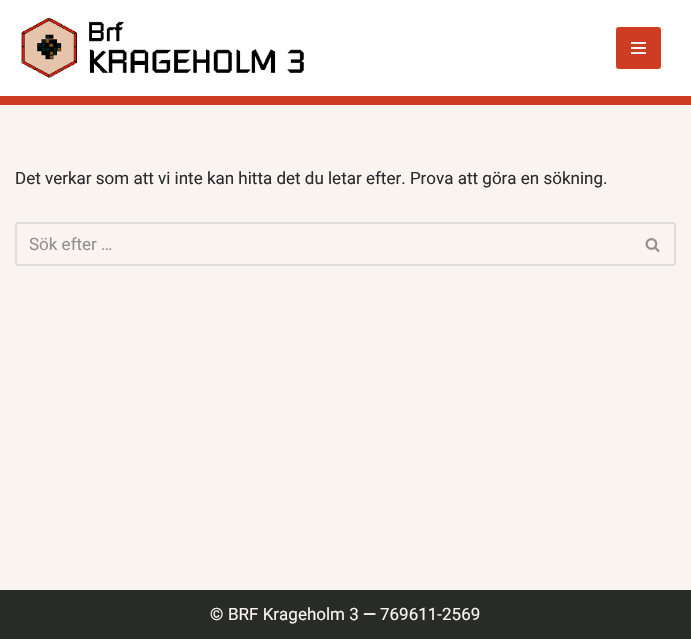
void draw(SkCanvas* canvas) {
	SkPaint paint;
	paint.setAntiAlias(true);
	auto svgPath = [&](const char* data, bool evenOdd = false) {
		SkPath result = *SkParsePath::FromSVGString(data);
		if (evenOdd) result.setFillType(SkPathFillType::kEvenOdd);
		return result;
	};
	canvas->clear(0xfff9f4f0);
	paint.setColor(0xffffffff);
	canvas->drawRect(SkRect::MakeXYWH(0, 0, 691, 96), paint);
	canvas->drawImageRect(SkImages::DeferredFromEncodedData(SkData::MakeFromFileName("img1.png")), SkRect::MakeXYWH(21, 17, 283, 61), SkSamplingOptions());
	paint.setColor(0xffce3d23);
	canvas->drawRoundRect(SkRect::MakeXYWH(616, 27, 45, 42), 3, 3, paint);
	paint.setColor(0xfff9f4f0);
	canvas->drawRect(SkRect::MakeXYWH(631, 42, 15, 2), paint);
	canvas->drawRect(SkRect::MakeXYWH(631, 47, 15, 2), paint);
	canvas->drawRect(SkRect::MakeXYWH(631, 52, 15, 2), paint);
	paint.setColor(0xffce3d23);
	canvas->drawRect(SkRect::MakeXYWH(0, 96, 691, 9), paint);
	SkFont f1(fontMgr->matchFamilyStyle("Roboto", SkFontStyle::Normal()), 17);
	f1.setSubpixel(true);
	paint.setColor(0xff2b2c2f);
	canvas->drawString("Det verkar som att vi inte kan hitta det du letar efter. Prova att göra en sökning.", 15, 184, f1, paint);
	paint.setColor(0xffdddddd);
	canvas->drawPath(svgPath("M18 222H631V266H18C16 266 15 265 15 263V225C15 223 16 222 18 222ZM18 224H631V264H18C17 264 17 264 17 263V225C17 224 17 224 18 224Z", true), paint);
	paint.setColor(0xff929090);
	canvas->drawString("Sök efter …", 29, 250, f1, paint);
	paint.setColor(0xffdddddd);
	canvas->drawPath(svgPath("M631 222H673C675 222 676 223 676 225V263C676 265 675 266 673 266H631ZM631 224H673C674 224 674 224 674 225V263C674 264 674 264 673 264H631Z", true), paint);
	canvas->drawImageRect(SkImages::DeferredFromEncodedData(SkData::MakeFromFileName("img2.png")), SkRect::MakeXYWH(645, 238, 15, 14), SkSamplingOptions());
	paint.setColor(0xff282b28);
	canvas->drawRect(SkRect::MakeXYWH(0, 590, 691, 49), paint);
	SkFont f2(fontMgr->matchFamilyStyle("Roboto", SkFontStyle(600, SkFontStyle::kNormal_Width, SkFontStyle::kUpright_Slant)), 17);
	f2.setSubpixel(true);
	paint.setColor(0xfff9f4f0);
	canvas->drawString("©", 210, 620, f2, paint);
	canvas->drawString("BRF Krageholm 3", 228, 620, f1, paint);
	canvas->drawString("—", 363, 620, f2, paint);
	canvas->drawString("769611-2569", 380, 620, f1, paint);
}
